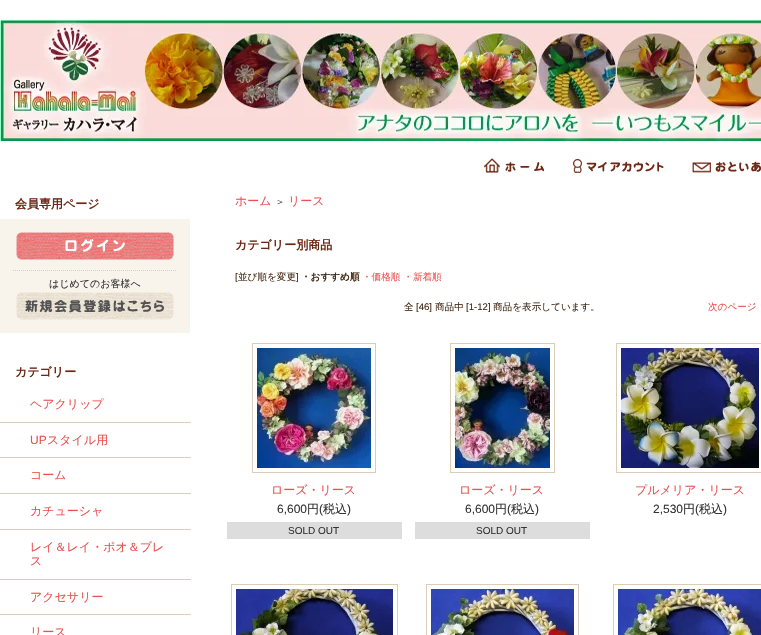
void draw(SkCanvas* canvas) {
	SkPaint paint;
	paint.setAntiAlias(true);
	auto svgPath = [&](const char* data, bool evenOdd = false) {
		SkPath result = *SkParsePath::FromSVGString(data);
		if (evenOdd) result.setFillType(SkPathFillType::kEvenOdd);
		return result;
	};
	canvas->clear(0xffffffff);
	canvas->drawImageRect(SkImages::DeferredFromEncodedData(SkData::MakeFromFileName("img1.png")), SkRect::MakeXYWH(0, 20, 761, 121), SkSamplingOptions());
	canvas->drawImageRect(SkImages::DeferredFromEncodedData(SkData::MakeFromFileName("img2.png")), SkRect::MakeXYWH(484, 158, 60, 15), SkSamplingOptions());
	canvas->drawImageRect(SkImages::DeferredFromEncodedData(SkData::MakeFromFileName("img3.png")), SkRect::MakeXYWH(573, 159, 91, 14), SkSamplingOptions());
	canvas->drawImageRect(SkImages::DeferredFromEncodedData(SkData::MakeFromFileName("img4.png")), SkRect::MakeXYWH(692, 161, 69, 12), SkSamplingOptions());
	SkFont f1(fontMgr->matchFamilyStyle("WenQuanYi Zen Hei", SkFontStyle::Bold()), 12);
	f1.setSubpixel(true);
	paint.setColor(0xff6d2916);
	canvas->drawString("会員専用ページ", 15, 208, f1, paint);
	paint.setColor(0xfff9f4eb);
	canvas->drawRect(SkRect::MakeXYWH(0, 219, 190, 114), paint);
	canvas->drawImageRect(SkImages::DeferredFromEncodedData(SkData::MakeFromFileName("img5.png")), SkRect::MakeXYWH(16, 232, 158, 28), SkSamplingOptions());
	paint.setStroke(true);
	paint.setStrokeWidth(1);
	paint.setColor(0xffdacdb9);
	paint.setPathEffect(SkDashPathEffect::Make({{1, 1}}, 0));
	canvas->drawPath(svgPath("M13 270.5H177"), paint);
	paint.setPathEffect(nullptr);
	SkFont f2(fontMgr->matchFamilyStyle("WenQuanYi Zen Hei", SkFontStyle(500, SkFontStyle::kNormal_Width, SkFontStyle::kUpright_Slant)), 10);
	f2.setSubpixel(true);
	paint.setStroke(false);
	paint.setColor(0xff333333);
	canvas->drawString("はじめてのお客様へ", 49, 287, f2, paint);
	canvas->drawImageRect(SkImages::DeferredFromEncodedData(SkData::MakeFromFileName("img6.png")), SkRect::MakeXYWH(16, 292, 158, 28), SkSamplingOptions());
	paint.setColor(0xff6d2916);
	canvas->drawString("カテゴリー", 15, 376, f1, paint);
	paint.setColor(0xffdacdb9);
	canvas->drawRect(SkRect::MakeXYWH(0, 422, 191, 1), paint);
	SkFont f3(fontMgr->matchFamilyStyle("WenQuanYi Zen Hei", SkFontStyle(500, SkFontStyle::kNormal_Width, SkFontStyle::kUpright_Slant)), 12);
	f3.setSubpixel(true);
	paint.setColor(0xffeb5050);
	canvas->drawString("ヘアクリップ", 30, 408, f3, paint);
	paint.setColor(0xffdacdb9);
	canvas->drawRect(SkRect::MakeXYWH(0, 457, 191, 1), paint);
	SkFont f4(fontMgr->matchFamilyStyle("Liberation Sans", SkFontStyle::Normal()), 12);
	f4.setSubpixel(true);
	paint.setColor(0xffeb5050);
	canvas->drawString("UP", 30, 444, f4, paint);
	canvas->drawString("スタイル用", 47, 444, f3, paint);
	paint.setColor(0xffdacdb9);
	canvas->drawRect(SkRect::MakeXYWH(0, 493, 191, 1), paint);
	paint.setColor(0xffeb5050);
	canvas->drawString("コーム", 30, 479, f3, paint);
	paint.setColor(0xffdacdb9);
	canvas->drawRect(SkRect::MakeXYWH(0, 529, 191, 1), paint);
	paint.setColor(0xffeb5050);
	canvas->drawString("カチューシャ", 30, 515, f3, paint);
	paint.setColor(0xffdacdb9);
	canvas->drawRect(SkRect::MakeXYWH(0, 579, 191, 1), paint);
	paint.setColor(0xffeb5050);
	canvas->drawString("レイ＆レイ・ポオ＆ブレ", 30, 551, f3, paint);
	canvas->drawString("ス", 30, 565, f3, paint);
	paint.setColor(0xffdacdb9);
	canvas->drawRect(SkRect::MakeXYWH(0, 614, 191, 1), paint);
	paint.setColor(0xffeb5050);
	canvas->drawString("アクセサリー", 30, 601, f3, paint);
	canvas->drawString("リース", 30, 636, f3, paint);
	canvas->drawString("ホーム", 235, 205, f3, paint);
	paint.setColor(0xff333333);
	canvas->drawString("＞", 275, 205, f2, paint);
	paint.setColor(0xffeb5050);
	canvas->drawString("リース", 288, 205, f3, paint);
	paint.setColor(0xff6d2916);
	canvas->drawString("カテゴリー別商品", 235, 249, f1, paint);
	SkFont f5(fontMgr->matchFamilyStyle("Liberation Sans", SkFontStyle::Normal()), 9.6);
	f5.setSubpixel(true);
	paint.setColor(0xff432a16);
	canvas->drawString("[", 235, 280, f5, paint);
	SkFont f6(fontMgr->matchFamilyStyle("WenQuanYi Zen Hei", SkFontStyle(500, SkFontStyle::kNormal_Width, SkFontStyle::kUpright_Slant)), 9.6);
	f6.setSubpixel(true);
	canvas->drawString("並び順を変更", 238, 280, f6, paint);
	canvas->drawString("]", 296, 280, f5, paint);
	SkFont f7(fontMgr->matchFamilyStyle("WenQuanYi Zen Hei", SkFontStyle::Bold()), 9.6);
	f7.setSubpixel(true);
	canvas->drawString("・おすすめ順", 301, 280, f7, paint);
	paint.setColor(0xffeb5050);
	canvas->drawString("・価格順 ・新着順", 362, 280, f6, paint);
	paint.setColor(0xff432a16);
	canvas->drawString("全", 404, 310, f6, paint);
	canvas->drawString("[46]", 416, 310, f5, paint);
	canvas->drawString("商品中", 435, 310, f6, paint);
	canvas->drawString("[1-12]", 466, 310, f5, paint);
	canvas->drawString("商品を表示しています。", 493, 310, f6, paint);
	paint.setColor(0xffeb5050);
	canvas->drawString("次のページ", 708, 310, f6, paint);
	paint.setStroke(true);
	paint.setColor(0xffdacdb9);
	canvas->drawRect(SkRect::MakeXYWH(252.5, 343.5, 123, 129), paint);
	canvas->drawImageRect(SkImages::DeferredFromEncodedData(SkData::MakeFromFileName("img7.png")), SkRect::MakeXYWH(257, 348, 114, 120), SkSamplingOptions());
	paint.setStroke(false);
	paint.setColor(0xffeb5050);
	canvas->drawString("ローズ・リース", 271, 494, f3, paint);
	paint.setColor(0xff333333);
	canvas->drawString("6,600", 277, 513, f4, paint);
	canvas->drawString("円", 307, 513, f3, paint);
	canvas->drawString("(", 319, 513, f4, paint);
	canvas->drawString("税込", 323, 513, f3, paint);
	canvas->drawString(")", 347, 513, f4, paint);
	paint.setColor(0xffdddddd);
	canvas->drawRect(SkRect::MakeXYWH(227, 522, 175, 17), paint);
	SkFont f8(fontMgr->matchFamilyStyle("Liberation Sans", SkFontStyle::Normal()), 10);
	f8.setSubpixel(true);
	paint.setColor(0xff333333);
	canvas->drawString("SOLD OUT", 288, 534, f8, paint);
	paint.setStroke(true);
	paint.setColor(0xffdacdb9);
	canvas->drawRect(SkRect::MakeXYWH(450.5, 343.5, 104, 129), paint);
	canvas->drawImageRect(SkImages::DeferredFromEncodedData(SkData::MakeFromFileName("img8.png")), SkRect::MakeXYWH(455, 348, 95, 120), SkSamplingOptions());
	paint.setStroke(false);
	paint.setColor(0xffeb5050);
	canvas->drawString("ローズ・リース", 459, 494, f3, paint);
	paint.setColor(0xff333333);
	canvas->drawString("6,600", 465, 513, f4, paint);
	canvas->drawString("円", 495, 513, f3, paint);
	canvas->drawString("(", 507, 513, f4, paint);
	canvas->drawString("税込", 511, 513, f3, paint);
	canvas->drawString(")", 535, 513, f4, paint);
	paint.setColor(0xffdddddd);
	canvas->drawRect(SkRect::MakeXYWH(415, 522, 175, 17), paint);
	paint.setColor(0xff333333);
	canvas->drawString("SOLD OUT", 476, 534, f8, paint);
	paint.setStroke(true);
	paint.setColor(0xffdacdb9);
	canvas->drawRect(SkRect::MakeXYWH(616.5, 343.5, 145, 129), paint);
	canvas->drawImageRect(SkImages::DeferredFromEncodedData(SkData::MakeFromFileName("img9.png")), SkRect::MakeXYWH(621, 348, 138, 120), SkSamplingOptions());
	paint.setStroke(false);
	paint.setColor(0xffeb5050);
	canvas->drawString("プルメリア・リース", 635, 494, f3, paint);
	paint.setColor(0xff333333);
	canvas->drawString("2,530", 653, 513, f4, paint);
	canvas->drawString("円", 683, 513, f3, paint);
	canvas->drawString("(", 695, 513, f4, paint);
	canvas->drawString("税込", 699, 513, f3, paint);
	canvas->drawString(")", 723, 513, f4, paint);
	paint.setStroke(true);
	paint.setColor(0xffdacdb9);
	canvas->drawRect(SkRect::MakeXYWH(231.5, 584.5, 166, 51), paint);
	canvas->drawImageRect(SkImages::DeferredFromEncodedData(SkData::MakeFromFileName("img10.png")), SkRect::MakeXYWH(236, 589, 157, 46), SkSamplingOptions());
	canvas->drawRect(SkRect::MakeXYWH(426.5, 584.5, 152, 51), paint);
	canvas->drawImageRect(SkImages::DeferredFromEncodedData(SkData::MakeFromFileName("img11.png")), SkRect::MakeXYWH(431, 589, 143, 46), SkSamplingOptions());
	canvas->drawRect(SkRect::MakeXYWH(613.5, 584.5, 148, 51), paint);
	canvas->drawImageRect(SkImages::DeferredFromEncodedData(SkData::MakeFromFileName("img12.png")), SkRect::MakeXYWH(618, 589, 143, 46), SkSamplingOptions());
}
